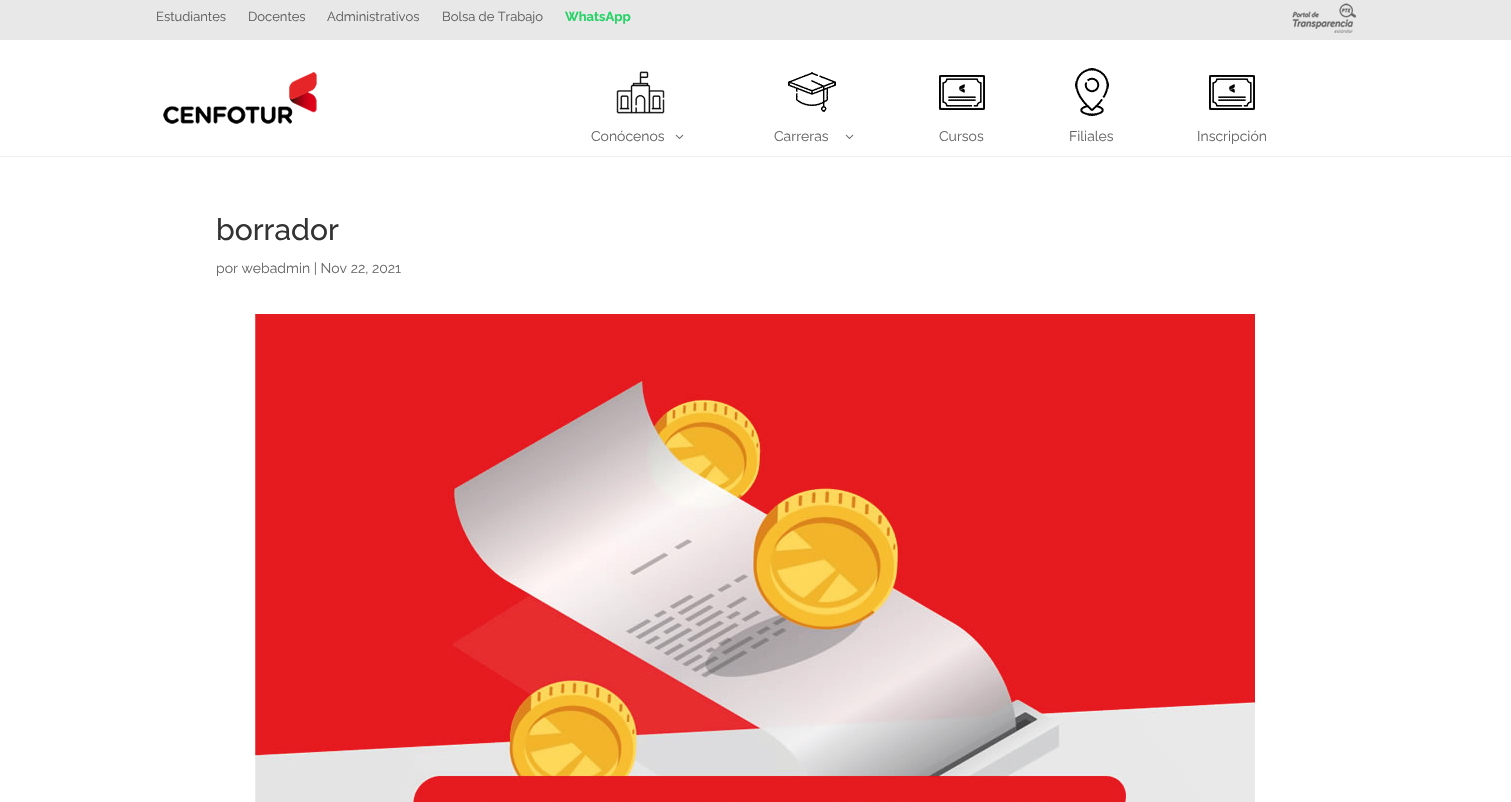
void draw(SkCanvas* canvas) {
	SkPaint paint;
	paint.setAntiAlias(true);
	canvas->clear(0xffffffff);
	paint.setColor(0xffe8e8e8);
	canvas->drawRect(SkRect::MakeXYWH(0, 0, 1511, 40), paint);
	SkFont f1(fontMgr->matchFamilyStyle("Raleway", SkFontStyle::Normal()), 13);
	f1.setSubpixel(true);
	paint.setColor(0xff5d5d5d);
	canvas->drawString("Estudiantes", 156, 21, f1, paint);
	canvas->drawString("Docentes", 248, 21, f1, paint);
	canvas->drawString("Administrativos", 327, 21, f1, paint);
	canvas->drawString("Bolsa de Trabajo", 442, 21, f1, paint);
	SkFont f2(fontMgr->matchFamilyStyle("Raleway", SkFontStyle::Bold()), 13);
	f2.setSubpixel(true);
	paint.setColor(0xff25d366);
	canvas->drawString("WhatsApp", 565, 21, f2, paint);
	canvas->drawImageRect(SkImages::DeferredFromEncodedData(SkData::MakeFromFileName("img1.png")), SkRect::MakeXYWH(1292, 3, 64, 30), SkSamplingOptions());
	paint.setColor(0xffefefef);
	canvas->drawRect(SkRect::MakeXYWH(0, 156, 1511, 1), paint);
	canvas->drawImageRect(SkImages::DeferredFromEncodedData(SkData::MakeFromFileName("img2.png")), SkRect::MakeXYWH(163, 72, 154, 52), SkSamplingOptions());
	canvas->drawImageRect(SkImages::DeferredFromEncodedData(SkData::MakeFromFileName("img3.png")), SkRect::MakeXYWH(616, 71, 49, 43), SkSamplingOptions());
	SkFont f3(fontMgr->matchFamilyStyle("Raleway", SkFontStyle::Normal()), 14);
	f3.setSubpixel(true);
	paint.setColor(0xff666666);
	canvas->drawString("Conócenos", 591, 141, f3, paint);
	canvas->drawImageRect(SkImages::DeferredFromEncodedData(SkData::MakeFromFileName("img4.png")), SkRect::MakeXYWH(675, 134, 9, 5), SkSamplingOptions());
	canvas->drawImageRect(SkImages::DeferredFromEncodedData(SkData::MakeFromFileName("img5.png")), SkRect::MakeXYWH(788, 72, 48, 40), SkSamplingOptions());
	canvas->drawString("Carreras", 774, 141, f3, paint);
	canvas->drawImageRect(SkImages::DeferredFromEncodedData(SkData::MakeFromFileName("img4.png")), SkRect::MakeXYWH(845, 134, 9, 5), SkSamplingOptions());
	canvas->drawImageRect(SkImages::DeferredFromEncodedData(SkData::MakeFromFileName("img6.png")), SkRect::MakeXYWH(939, 75, 46, 35), SkSamplingOptions());
	canvas->drawString("Cursos", 939, 141, f3, paint);
	canvas->drawImageRect(SkImages::DeferredFromEncodedData(SkData::MakeFromFileName("img7.png")), SkRect::MakeXYWH(1075, 68, 34, 48), SkSamplingOptions());
	canvas->drawString("Filiales", 1069, 141, f3, paint);
	canvas->drawImageRect(SkImages::DeferredFromEncodedData(SkData::MakeFromFileName("img6.png")), SkRect::MakeXYWH(1209, 75, 46, 35), SkSamplingOptions());
	canvas->drawString("Inscripción", 1197, 141, f3, paint);
	SkFont f4(fontMgr->matchFamilyStyle("Raleway", SkFontStyle(500, SkFontStyle::kNormal_Width, SkFontStyle::kUpright_Slant)), 30);
	f4.setSubpixel(true);
	paint.setColor(0xff333333);
	canvas->drawString("borrador", 216, 240, f4, paint);
	paint.setColor(0xff666666);
	canvas->drawString("por webadmin | Nov 22, 2021", 216, 273, f3, paint);
	canvas->drawImageRect(SkImages::DeferredFromEncodedData(SkData::MakeFromFileName("img8.png")), SkRect::MakeXYWH(255, 313, 1000, 489), SkSamplingOptions());
}
